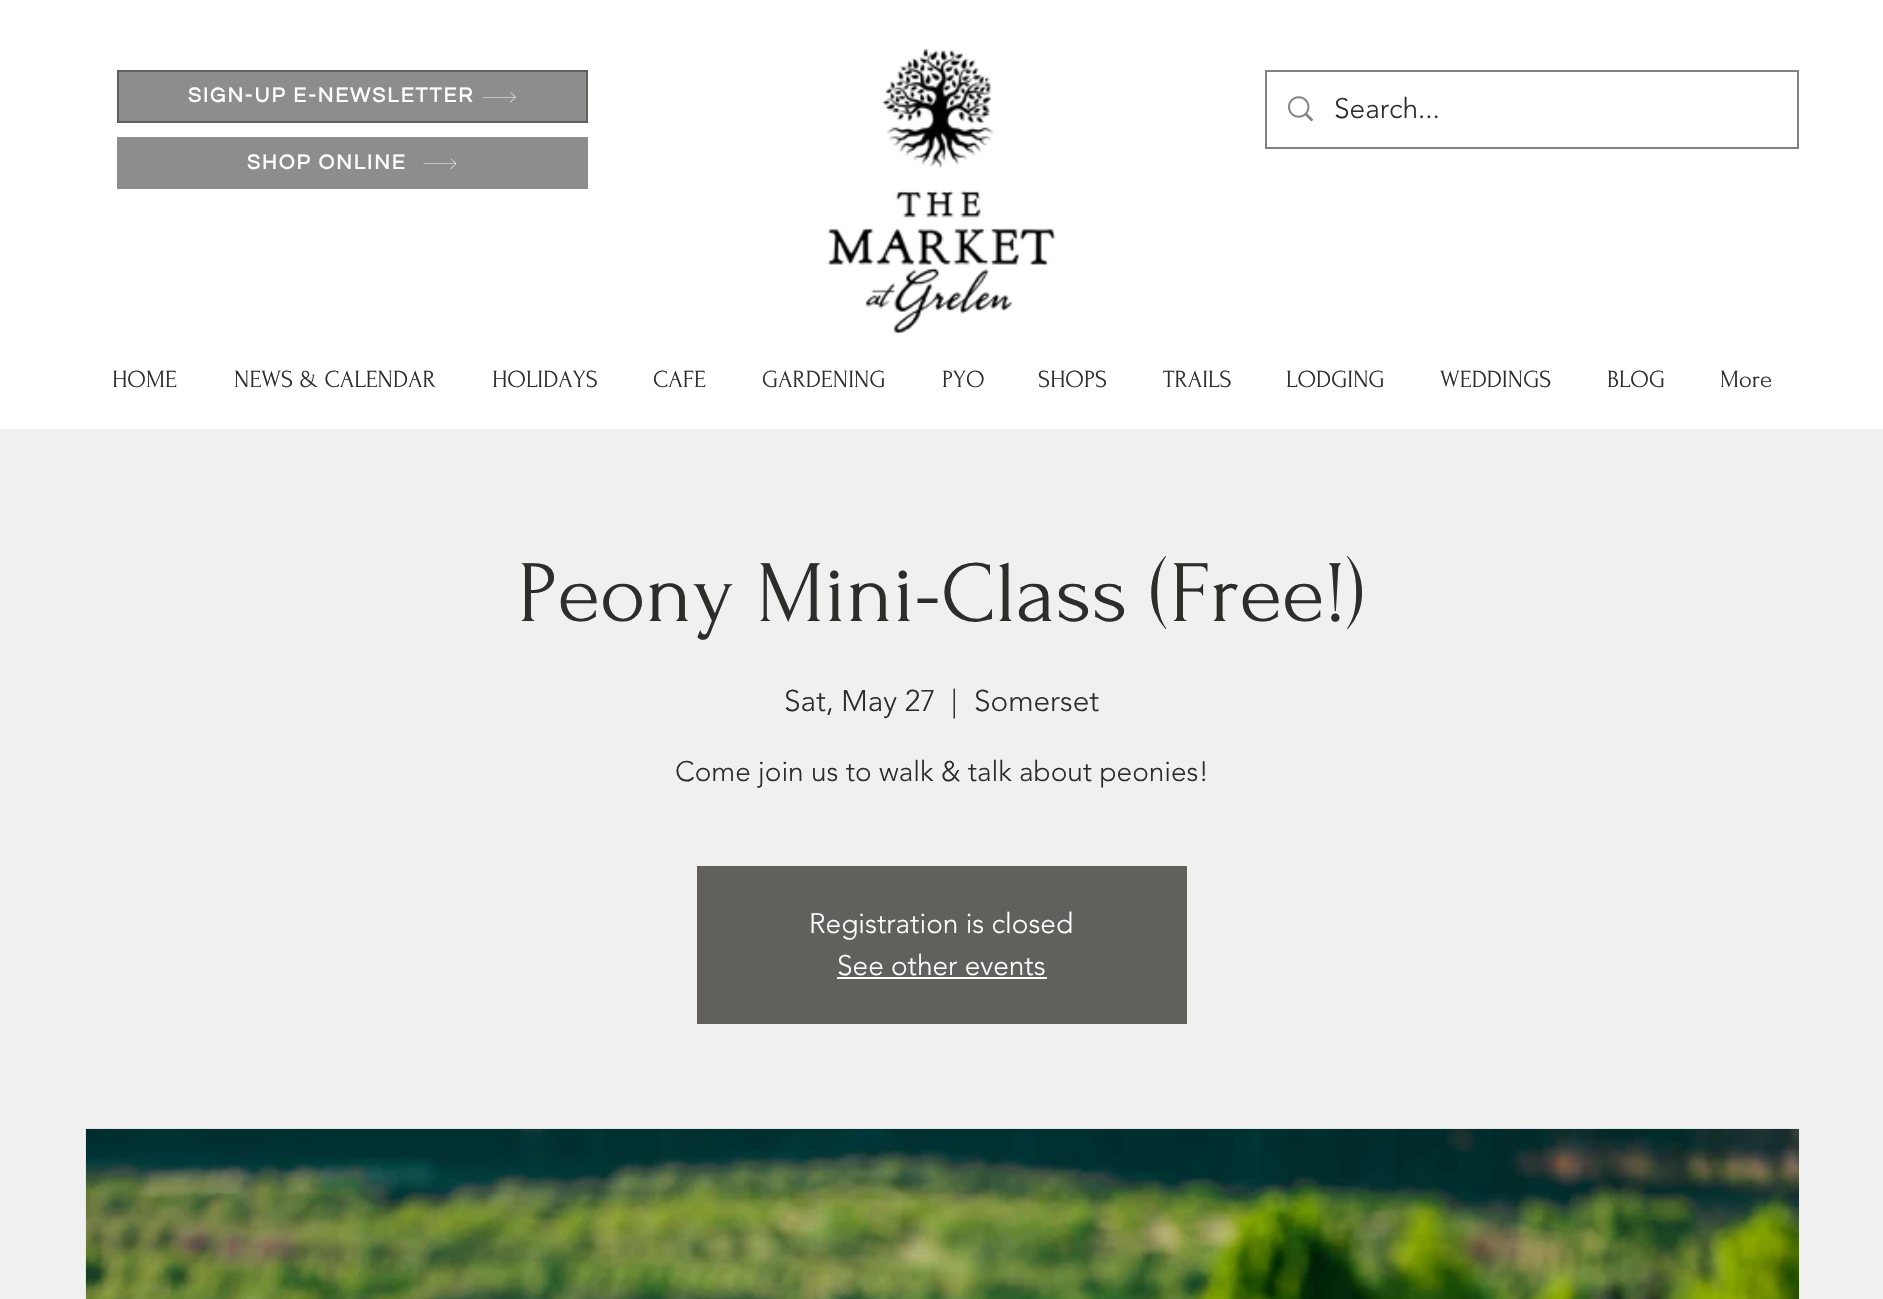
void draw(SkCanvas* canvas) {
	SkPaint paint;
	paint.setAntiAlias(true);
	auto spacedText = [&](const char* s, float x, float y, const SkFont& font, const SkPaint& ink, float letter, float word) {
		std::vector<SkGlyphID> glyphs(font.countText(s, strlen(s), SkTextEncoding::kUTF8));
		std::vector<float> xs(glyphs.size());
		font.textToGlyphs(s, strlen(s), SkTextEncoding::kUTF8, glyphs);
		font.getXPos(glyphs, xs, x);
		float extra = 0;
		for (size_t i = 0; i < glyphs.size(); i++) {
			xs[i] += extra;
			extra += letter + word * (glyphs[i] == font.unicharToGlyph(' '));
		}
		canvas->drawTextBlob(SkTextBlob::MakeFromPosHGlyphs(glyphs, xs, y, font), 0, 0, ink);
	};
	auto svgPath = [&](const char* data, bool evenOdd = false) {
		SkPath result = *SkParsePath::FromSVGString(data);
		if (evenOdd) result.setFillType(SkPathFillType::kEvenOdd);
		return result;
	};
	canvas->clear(0xffffffff);
	paint.setColor(0xff8d8d8d);
	canvas->drawRect(SkRect::MakeXYWH(118, 71, 469, 51), paint);
	paint.setStroke(true);
	paint.setStrokeWidth(2);
	paint.setColor(0xff62605d);
	canvas->drawRect(SkRect::MakeXYWH(118, 71, 469, 51), paint);
	SkFont f1(fontMgr->matchFamilyStyle("Questrial", SkFontStyle::Bold()), 21);
	f1.setSubpixel(true);
	paint.setStroke(false);
	paint.setColor(0xffffffff);
	spacedText("SIGN-UP E-NEWSLETTER", 188, 102, f1, paint, 2.1, 0);
	canvas->drawPath(svgPath("M510.5 92H510L515 97H483V97.5H515L510 102L510.5 102.5L516 97Z"), paint);
	canvas->drawImageRect(SkImages::DeferredFromEncodedData(SkData::MakeFromFileName("img1.png")), SkRect::MakeXYWH(882, 48, 112, 121), SkSamplingOptions());
	paint.setStroke(true);
	paint.setColor(0xff818180);
	canvas->drawRect(SkRect::MakeXYWH(1266, 71, 532, 77), paint);
	canvas->drawImageRect(SkImages::DeferredFromEncodedData(SkData::MakeFromFileName("img2.png")), SkRect::MakeXYWH(1288, 96, 25, 26), SkSamplingOptions());
	SkFont f2(fontMgr->matchFamilyStyle("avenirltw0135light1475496", SkFontStyle(300, SkFontStyle::kNormal_Width, SkFontStyle::kUpright_Slant)), 28);
	f2.setSubpixel(true);
	paint.setStroke(false);
	paint.setColor(0xff2d2d2b);
	canvas->drawString("Search...", 1334, 118, f2, paint);
	paint.setColor(0xff8d8d8d);
	canvas->drawRect(SkRect::MakeXYWH(117, 137, 471, 52), paint);
	paint.setColor(0xffffffff);
	spacedText("SHOP ONLINE", 247, 169, f1, paint, 2.1, 0);
	canvas->drawPath(svgPath("M451 158.5H450.5L455.5 163.5H423.5V164H455.5L450.5 168.5L451 169L456.5 163.5Z"), paint);
	canvas->drawImageRect(SkImages::DeferredFromEncodedData(SkData::MakeFromFileName("img3.png")), SkRect::MakeXYWH(827, 190, 229, 144), SkSamplingOptions());
	SkFont f3(fontMgr->matchFamilyStyle("Forum", SkFontStyle::Normal()), 24.5);
	f3.setSubpixel(true);
	paint.setColor(0xff2d2d2b);
	canvas->drawString("HOME", 112, 387, f3, paint);
	canvas->drawString("NEWS & CALENDAR", 234, 387, f3, paint);
	canvas->drawString("HOLIDAYS", 492, 387, f3, paint);
	canvas->drawString("CAFE", 653, 387, f3, paint);
	canvas->drawString("GARDENING", 762, 387, f3, paint);
	canvas->drawString("PYO", 942, 387, f3, paint);
	canvas->drawString("SHOPS", 1038, 387, f3, paint);
	canvas->drawString("TRAILS", 1163, 387, f3, paint);
	canvas->drawString("LODGING", 1286, 387, f3, paint);
	canvas->drawString("WEDDINGS", 1440, 387, f3, paint);
	canvas->drawString("BLOG", 1607, 387, f3, paint);
	canvas->drawString("More", 1720, 387, f3, paint);
	paint.setColor(0xfff0f0f0);
	canvas->drawRect(SkRect::MakeXYWH(0, 429, 1883, 870), paint);
	SkFont f4(fontMgr->matchFamilyStyle("Forum", SkFontStyle::Normal()), 87.5);
	f4.setSubpixel(true);
	paint.setColor(0xff2d2d2b);
	canvas->drawString("Peony Mini-Class (Free!)", 518, 621, f4, paint);
	SkFont f5(fontMgr->matchFamilyStyle("avenirltw0135light1475496", SkFontStyle(300, SkFontStyle::kNormal_Width, SkFontStyle::kUpright_Slant)), 29.75);
	f5.setSubpixel(true);
	canvas->drawString("Sat, May 27", 784, 711, f5, paint);
	canvas->drawString("|", 951, 711, f5, paint);
	canvas->drawString("Somerset", 974, 711, f5, paint);
	canvas->drawString("Come join us to walk & talk about peonies!", 675, 781, f2, paint);
	paint.setColor(0xff62605d);
	canvas->drawRect(SkRect::MakeXYWH(697, 866, 490, 158), paint);
	paint.setColor(0xffffffff);
	canvas->drawString("Registration is closed", 809, 933, f2, paint);
	canvas->drawString("See other events", 837, 975, f2, paint);
	canvas->drawRect(SkRect::MakeXYWH(837, 977, 210, 2), paint);
	canvas->drawImageRect(SkImages::DeferredFromEncodedData(SkData::MakeFromFileName("img4.png")), SkRect::MakeXYWH(85, 1128, 1714, 171), SkSamplingOptions());
}
